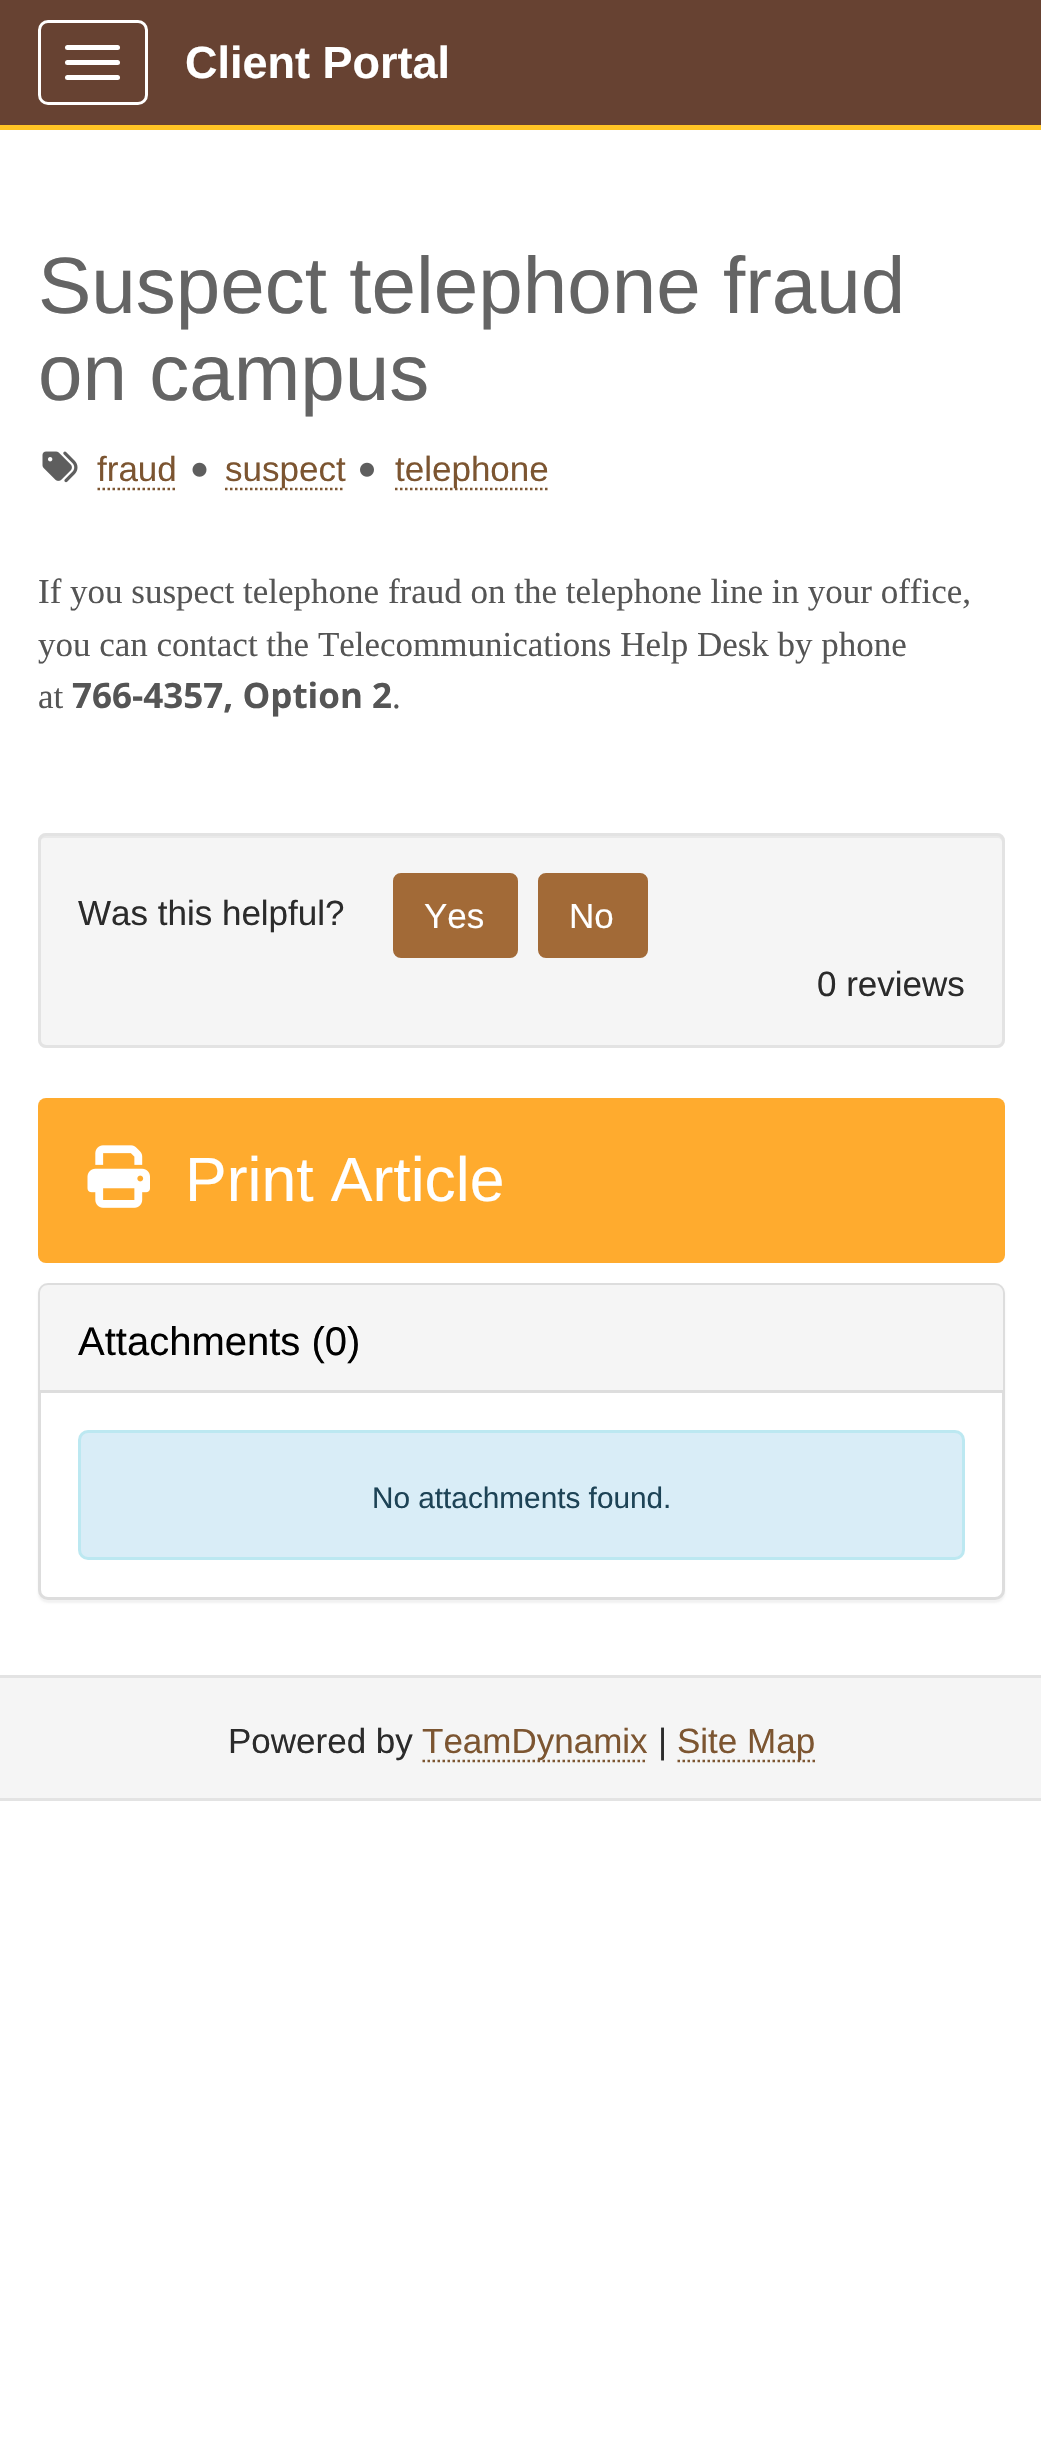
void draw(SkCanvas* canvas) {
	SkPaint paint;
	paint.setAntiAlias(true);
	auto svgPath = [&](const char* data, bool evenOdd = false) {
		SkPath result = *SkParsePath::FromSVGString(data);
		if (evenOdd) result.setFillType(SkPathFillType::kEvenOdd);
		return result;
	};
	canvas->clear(0xffffffff);
	paint.setColor(0xff674232);
	canvas->drawRect(SkRect::MakeXYWH(0, 0, 1041, 125), paint);
	paint.setColor(0xffffc425);
	canvas->drawRect(SkRect::MakeXYWH(0, 125, 1041, 5), paint);
	paint.setStroke(true);
	paint.setStrokeWidth(3);
	paint.setColor(0xffffffff);
	canvas->drawRoundRect(SkRect::MakeXYWH(39.5, 21.5, 107, 82), 8.5, 8.5, paint);
	paint.setStroke(false);
	canvas->drawRoundRect(SkRect::MakeXYWH(65, 45, 55, 5), 2.5, 2.5, paint);
	canvas->drawRoundRect(SkRect::MakeXYWH(65, 60, 55, 5), 2.5, 2.5, paint);
	canvas->drawRoundRect(SkRect::MakeXYWH(65, 75, 55, 5), 2.5, 2.5, paint);
	SkFont f1(fontMgr->matchFamilyStyle("Liberation Sans", SkFontStyle::Bold()), 45);
	f1.setSubpixel(true);
	canvas->drawString("Client Portal", 185, 78, f1, paint);
	SkFont f2(fontMgr->matchFamilyStyle("Liberation Sans", SkFontStyle::Normal()), 80);
	f2.setSubpixel(true);
	paint.setColor(0xff646464);
	canvas->drawString("Suspect telephone fraud", 38, 313, f2, paint);
	canvas->drawString("on campus", 38, 400, f2, paint);
	canvas->drawImageRect(SkImages::DeferredFromEncodedData(SkData::MakeFromFileName("img1.png")), SkRect::MakeXYWH(42, 451, 36, 32), SkSamplingOptions());
	SkFont f3(fontMgr->matchFamilyStyle("Liberation Sans", SkFontStyle::Normal()), 35);
	f3.setSubpixel(true);
	paint.setColor(0xff7c5531);
	canvas->drawString("fraud", 97, 481, f3, paint);
	paint.setStroke(true);
	paint.setStrokeWidth(2.5);
	paint.setPathEffect(SkDashPathEffect::Make({{2.5f, 2.5f}}, 0));
	canvas->drawPath(svgPath("M97.5 489H177.5"), paint);
	paint.setPathEffect(nullptr);
	canvas->drawImageRect(SkImages::DeferredFromEncodedData(SkData::MakeFromFileName("img2.png")), SkRect::MakeXYWH(192, 462, 15, 15), SkSamplingOptions());
	paint.setPathEffect(SkDashPathEffect::Make({{2.5f, 2.5f}}, 0));
	canvas->drawPath(svgPath("M225 489H345"), paint);
	paint.setPathEffect(nullptr);
	paint.setStroke(false);
	canvas->drawString("suspect", 225, 481, f3, paint);
	canvas->drawImageRect(SkImages::DeferredFromEncodedData(SkData::MakeFromFileName("img3.png")), SkRect::MakeXYWH(360, 462, 14, 15), SkSamplingOptions());
	paint.setStroke(true);
	paint.setPathEffect(SkDashPathEffect::Make({{2.5f, 2.5f}}, 0));
	canvas->drawPath(svgPath("M395 489H547.5"), paint);
	paint.setPathEffect(nullptr);
	paint.setStroke(false);
	canvas->drawString("telephone", 395, 481, f3, paint);
	SkFont f4(fontMgr->matchFamilyStyle("Liberation Serif", SkFontStyle::Normal()), 35);
	f4.setSubpixel(true);
	paint.setColor(0xff555555);
	canvas->drawString("If you suspect telephone fraud on the telephone line in your office,", 38, 603, f4, paint);
	canvas->drawString("you can contact the Telecommunications Help Desk by phone", 38, 656, f4, paint);
	canvas->drawString("at", 38, 708, f4, paint);
	SkFont f5(fontMgr->matchFamilyStyle("Open Sans", SkFontStyle::Bold()), 35);
	f5.setSubpixel(true);
	canvas->drawString("766-4357, Option 2", 72, 708, f5, paint);
	canvas->drawString(".", 392, 708, f4, paint);
	paint.setColor(0xfff5f5f5);
	canvas->drawRoundRect(SkRect::MakeXYWH(38, 833, 967, 215), 8, 8, paint);
	paint.setColor(0xffe9e9e9);
	canvas->drawPath(svgPath("M45 838H998C1000 838 1002 840 1002 842V1043C1003 1042 1003 1041 1003 1040V840C1003 837 1001 835 998 835H45C42 835 40 837 40 840V842C40 840 42 838 45 838Z"), paint);
	paint.setStroke(true);
	paint.setStrokeWidth(3);
	paint.setColor(0xffe3e3e3);
	canvas->drawRoundRect(SkRect::MakeXYWH(39.5, 834.5, 964, 212), 6.5, 6.5, paint);
	paint.setStroke(false);
	paint.setColor(0xff2b2b2b);
	canvas->drawString("Was this helpful?", 78, 925, f3, paint);
	paint.setColor(0xffa26a37);
	canvas->drawRoundRect(SkRect::MakeXYWH(394.5, 874.5, 122, 82), 6.5, 6.5, paint);
	paint.setStroke(true);
	canvas->drawRoundRect(SkRect::MakeXYWH(394.5, 874.5, 122, 82), 6.5, 6.5, paint);
	paint.setStroke(false);
	paint.setColor(0xffffffff);
	canvas->drawString("Yes", 424, 928, f3, paint);
	paint.setColor(0xffa26a37);
	canvas->drawRoundRect(SkRect::MakeXYWH(539.5, 874.5, 107, 82), 6.5, 6.5, paint);
	paint.setStroke(true);
	canvas->drawRoundRect(SkRect::MakeXYWH(539.5, 874.5, 107, 82), 6.5, 6.5, paint);
	paint.setStroke(false);
	paint.setColor(0xffffffff);
	canvas->drawString("No", 569, 928, f3, paint);
	paint.setColor(0xff2b2b2b);
	canvas->drawString("0 reviews", 817, 996, f3, paint);
	paint.setColor(0xffffab2e);
	canvas->drawRoundRect(SkRect::MakeXYWH(38, 1098, 967, 165), 8, 8, paint);
	canvas->drawImageRect(SkImages::DeferredFromEncodedData(SkData::MakeFromFileName("img4.png")), SkRect::MakeXYWH(87, 1145, 63, 63), SkSamplingOptions());
	SkFont f6(fontMgr->matchFamilyStyle("Liberation Sans", SkFontStyle::Normal()), 62.5);
	f6.setSubpixel(true);
	paint.setColor(0xffffffff);
	canvas->drawString("Print Article", 185, 1201, f6, paint);
	paint.setColor(0x0d000000);
	paint.setMaskFilter(SkMaskFilter::MakeBlur(kNormal_SkBlurStyle, 1));
	canvas->drawRoundRect(SkRect::MakeXYWH(38, 1285, 967, 318), 10, 10, paint);
	paint.setMaskFilter(nullptr);
	paint.setColor(0xffffffff);
	canvas->drawRoundRect(SkRect::MakeXYWH(39.5, 1284.5, 964, 314), 8.5, 8.5, paint);
	paint.setStroke(true);
	paint.setColor(0xffdddddd);
	canvas->drawRoundRect(SkRect::MakeXYWH(39.5, 1284.5, 964, 314), 8.5, 8.5, paint);
	paint.setStroke(false);
	paint.setColor(0xfff5f5f5);
	canvas->drawPath(svgPath("M48 1285H995C999.5 1285 1003 1288.5 1003 1293V1393H40V1293C40 1288.5 43.5 1285 48 1285Z"), paint);
	paint.setColor(0xffdddddd);
	canvas->drawRect(SkRect::MakeXYWH(40, 1390, 963, 3), paint);
	SkFont f7(fontMgr->matchFamilyStyle("Liberation Sans", SkFontStyle::Normal()), 40);
	f7.setSubpixel(true);
	paint.setColor(0xff000000);
	canvas->drawString("Attachments (0)", 78, 1355, f7, paint);
	paint.setColor(0xffd9edf7);
	canvas->drawRoundRect(SkRect::MakeXYWH(79.5, 1431.5, 884, 127), 8.5, 8.5, paint);
	paint.setStroke(true);
	paint.setColor(0xffbce8f1);
	canvas->drawRoundRect(SkRect::MakeXYWH(79.5, 1431.5, 884, 127), 8.5, 8.5, paint);
	SkFont f8(fontMgr->matchFamilyStyle("Liberation Sans", SkFontStyle::Normal()), 29.75);
	f8.setSubpixel(true);
	paint.setStroke(false);
	paint.setColor(0xff1d4356);
	canvas->drawString("No attachments found.", 372, 1508, f8, paint);
	paint.setColor(0xfff5f5f5);
	canvas->drawRect(SkRect::MakeXYWH(0, 1678, 1041, 120), paint);
	paint.setColor(0xffe3e3e3);
	canvas->drawRect(SkRect::MakeXYWH(0, 1675, 1041, 3), paint);
	canvas->drawRect(SkRect::MakeXYWH(0, 1798, 1041, 3), paint);
	paint.setColor(0xff2b2b2b);
	canvas->drawString("Powered by", 228, 1753, f3, paint);
	paint.setStroke(true);
	paint.setStrokeWidth(2.5);
	paint.setColor(0xff7c5531);
	paint.setPathEffect(SkDashPathEffect::Make({{2.5f, 2.5f}}, 0));
	canvas->drawPath(svgPath("M422.5 1761H647.5"), paint);
	paint.setPathEffect(nullptr);
	paint.setStroke(false);
	canvas->drawString("TeamDynamix", 422, 1753, f3, paint);
	paint.setColor(0xff2b2b2b);
	canvas->drawString("|", 658, 1753, f3, paint);
	paint.setStroke(true);
	paint.setColor(0xff7c5531);
	paint.setPathEffect(SkDashPathEffect::Make({{2.5f, 2.5f}}, 0));
	canvas->drawPath(svgPath("M677.5 1761H815"), paint);
	paint.setPathEffect(nullptr);
	paint.setStroke(false);
	canvas->drawString("Site Map", 677, 1753, f3, paint);
}
